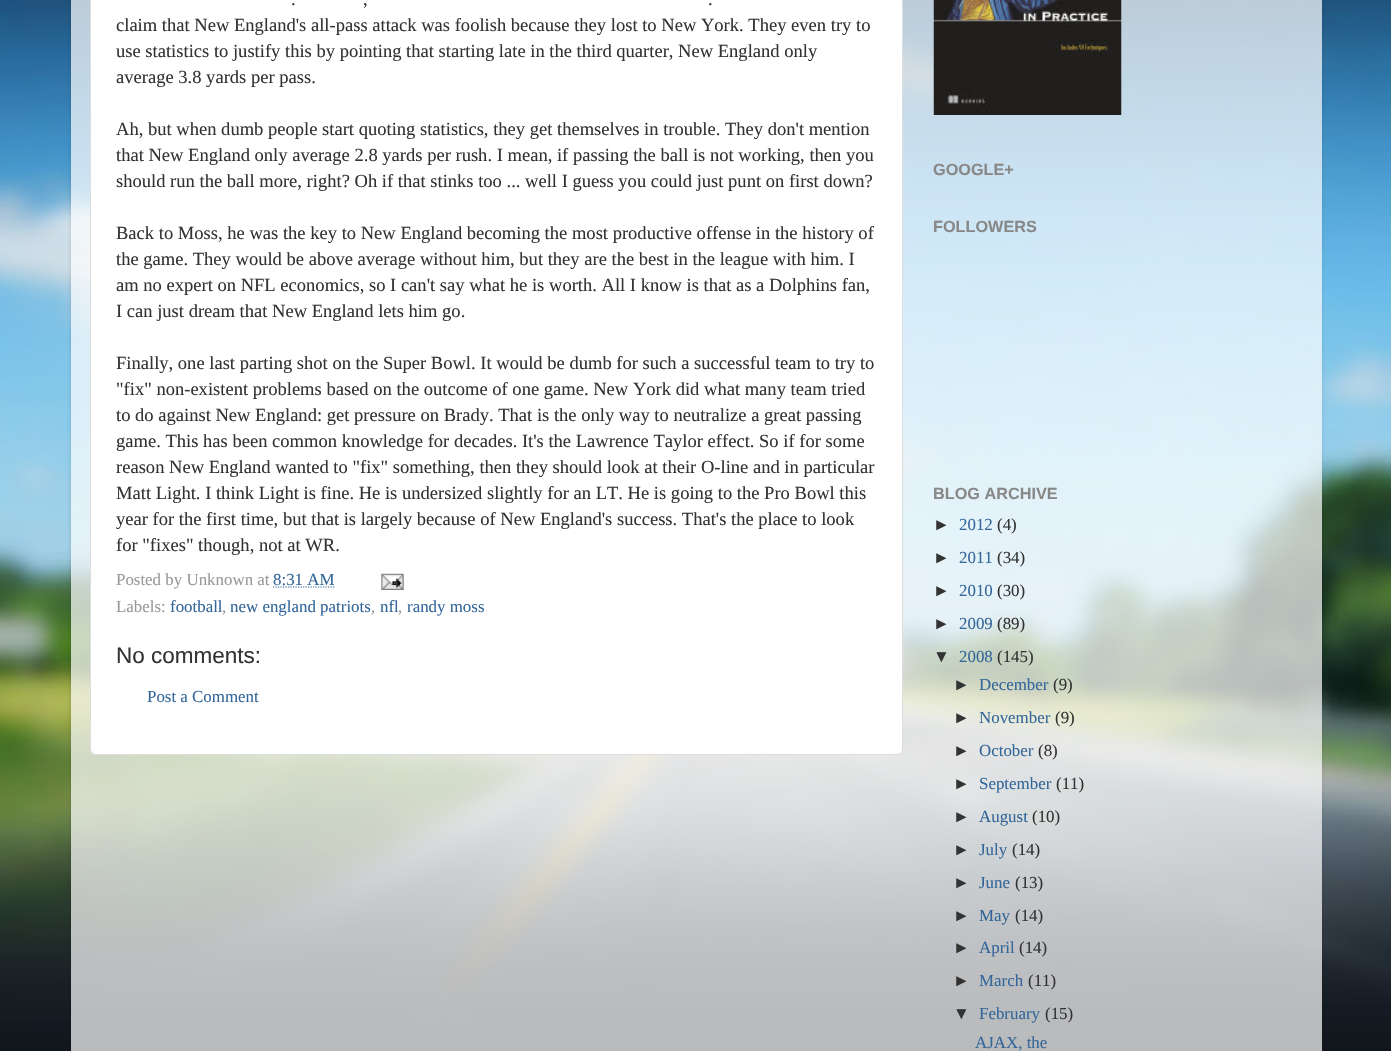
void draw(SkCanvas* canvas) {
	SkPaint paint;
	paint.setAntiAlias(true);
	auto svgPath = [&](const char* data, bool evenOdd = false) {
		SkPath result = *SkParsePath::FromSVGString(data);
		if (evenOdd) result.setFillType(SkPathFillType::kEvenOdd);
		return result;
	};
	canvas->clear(0xffffffff);
	canvas->drawImageRect(SkImages::DeferredFromEncodedData(SkData::MakeFromFileName("img1.png")), SkRect::MakeXYWH(0, 0, 1391, 1051), SkSamplingOptions());
	canvas->save();
	canvas->clipPath(svgPath("M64 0H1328V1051H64ZM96-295H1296C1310-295 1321-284 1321-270V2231H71V-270C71-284 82-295 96-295Z", true), true);
	paint.setColor(0x26000000);
	paint.setMaskFilter(SkMaskFilter::MakeBlur(kNormal_SkBlurStyle, 2));
	canvas->drawRoundRect(SkRect::MakeXYWH(71, -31, 1250, 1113), 25, 25, paint);
	paint.setMaskFilter(nullptr);
	canvas->restore();
	paint.setColor(0xb3ffffff);
	canvas->drawRect(SkRect::MakeXYWH(71, 0, 1251, 1051), paint);
	paint.setColor(0xffffffff);
	canvas->drawRoundRect(SkRect::MakeXYWH(90.5, -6.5, 812, 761), 5.5, 5.5, paint);
	paint.setStroke(true);
	paint.setStrokeWidth(1);
	paint.setColor(0xffdddddd);
	canvas->drawRoundRect(SkRect::MakeXYWH(90.5, -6.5, 812, 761), 5.5, 5.5, paint);
	SkFont f1(fontMgr->matchFamilyStyle("Liberation Serif", SkFontStyle::Normal()), 18.55);
	f1.setSubpixel(true);
	paint.setStroke(false);
	paint.setColor(0xff333333);
	canvas->drawString(".", 291, 5, f1, paint);
	canvas->drawString(",", 363, 5, f1, paint);
	canvas->drawString(".", 708, 5, f1, paint);
	canvas->drawString("claim that New England's all-pass attack was foolish because they lost to New York. They even try to", 116, 31, f1, paint);
	canvas->drawString("use statistics to justify this by pointing that starting late in the third quarter, New England only", 116, 57, f1, paint);
	canvas->drawString("average 3.8 yards per pass.", 116, 83, f1, paint);
	canvas->drawString("Ah, but when dumb people start quoting statistics, they get themselves in trouble. They don't mention", 116, 135, f1, paint);
	canvas->drawString("that New England only average 2.8 yards per rush. I mean, if passing the ball is not working, then you", 116, 161, f1, paint);
	canvas->drawString("should run the ball more, right? Oh if that stinks too ... well I guess you could just punt on first down?", 116, 187, f1, paint);
	canvas->drawString("Back to Moss, he was the key to New England becoming the most productive offense in the history of", 116, 239, f1, paint);
	canvas->drawString("the game. They would be above average without him, but they are the best in the league with him. I", 116, 265, f1, paint);
	canvas->drawString("am no expert on NFL economics, so I can't say what he is worth. All I know is that as a Dolphins fan,", 116, 291, f1, paint);
	canvas->drawString("I can just dream that New England lets him go.", 116, 317, f1, paint);
	canvas->drawString("Finally, one last parting shot on the Super Bowl. It would be dumb for such a successful team to try to", 116, 369, f1, paint);
	canvas->drawString("\"fix\" non-existent problems based on the outcome of one game. New York did what many team tried", 116, 395, f1, paint);
	canvas->drawString("to do against New England: get pressure on Brady. That is the only way to neutralize a great passing", 116, 421, f1, paint);
	canvas->drawString("game. This has been common knowledge for decades. It's the Lawrence Taylor effect. So if for some", 116, 447, f1, paint);
	canvas->drawString("reason New England wanted to \"fix\" something, then they should look at their O-line and in particular", 116, 473, f1, paint);
	canvas->drawString("Matt Light. I think Light is fine. He is undersized slightly for an LT. He is going to the Pro Bowl this", 116, 499, f1, paint);
	canvas->drawString("year for the first time, but that is largely because of New England's success. That's the place to look", 116, 525, f1, paint);
	canvas->drawString("for \"fixes\" though, not at WR.", 116, 551, f1, paint);
	SkFont f2(fontMgr->matchFamilyStyle("Liberation Serif", SkFontStyle::Normal()), 16.9);
	f2.setSubpixel(true);
	paint.setColor(0xff999999);
	canvas->drawString("Posted by Unknown at", 116, 585, f2, paint);
	paint.setColor(0xff336699);
	canvas->drawString("8:31 AM", 273, 585, f2, paint);
	paint.setStroke(true);
	paint.setStrokeWidth(1.2);
	paint.setPathEffect(SkDashPathEffect::Make({{1.25f, 1.25f}}, 0));
	canvas->drawPath(svgPath("M273 587H334.5"), paint);
	paint.setPathEffect(nullptr);
	canvas->drawImageRect(SkImages::DeferredFromEncodedData(SkData::MakeFromFileName("img2.png")), SkRect::MakeXYWH(381, 573, 23, 17), SkSamplingOptions());
	paint.setStroke(false);
	paint.setColor(0xff999999);
	canvas->drawString("Labels:", 116, 612, f2, paint);
	paint.setColor(0xff336699);
	canvas->drawString("football", 170, 612, f2, paint);
	paint.setColor(0xff999999);
	canvas->drawString(",", 222, 612, f2, paint);
	paint.setColor(0xff336699);
	canvas->drawString("new england patriots", 230, 612, f2, paint);
	paint.setColor(0xff999999);
	canvas->drawString(",", 371, 612, f2, paint);
	paint.setColor(0xff336699);
	canvas->drawString("nfl", 380, 612, f2, paint);
	paint.setColor(0xff999999);
	canvas->drawString(",", 398, 612, f2, paint);
	paint.setColor(0xff336699);
	canvas->drawString("randy moss", 407, 612, f2, paint);
	SkFont f3(fontMgr->matchFamilyStyle("Liberation Sans", SkFontStyle::Normal()), 22.5);
	f3.setSubpixel(true);
	paint.setColor(0xff333333);
	canvas->drawString("No comments:", 116, 663, f3, paint);
	paint.setColor(0xff336699);
	canvas->drawString("Post a Comment", 147, 702, f2, paint);
	canvas->drawImageRect(SkImages::DeferredFromEncodedData(SkData::MakeFromFileName("img3.png")), SkRect::MakeXYWH(933, 0, 189, 115), SkSamplingOptions());
	SkFont f4(fontMgr->matchFamilyStyle("Liberation Sans", SkFontStyle::Bold()), 16.25);
	f4.setSubpixel(true);
	paint.setColor(0xff888888);
	canvas->drawString("GOOGLE+", 933, 175, f4, paint);
	canvas->drawString("FOLLOWERS", 933, 232, f4, paint);
	canvas->drawString("BLOG ARCHIVE", 933, 499, f4, paint);
	SkFont f5(fontMgr->matchFamilyStyle("Liberation Sans", SkFontStyle::Normal()), 16.9);
	f5.setSubpixel(true);
	paint.setColor(0xff333333);
	canvas->drawString("►", 933, 530, f5, paint);
	paint.setColor(0xff336699);
	canvas->drawString("2012", 959, 530, f2, paint);
	paint.setColor(0xff333333);
	canvas->drawString("(4)", 997, 530, f2, paint);
	canvas->drawString("►", 933, 563, f5, paint);
	paint.setColor(0xff336699);
	canvas->drawString("2011", 959, 563, f2, paint);
	paint.setColor(0xff333333);
	canvas->drawString("(34)", 997, 563, f2, paint);
	canvas->drawString("►", 933, 596, f5, paint);
	paint.setColor(0xff336699);
	canvas->drawString("2010", 959, 596, f2, paint);
	paint.setColor(0xff333333);
	canvas->drawString("(30)", 997, 596, f2, paint);
	canvas->drawString("►", 933, 629, f5, paint);
	paint.setColor(0xff336699);
	canvas->drawString("2009", 959, 629, f2, paint);
	paint.setColor(0xff333333);
	canvas->drawString("(89)", 997, 629, f2, paint);
	canvas->drawString("▼", 933, 662, f5, paint);
	paint.setColor(0xff336699);
	canvas->drawString("2008", 959, 662, f2, paint);
	paint.setColor(0xff333333);
	canvas->drawString("(145)", 997, 662, f2, paint);
	canvas->drawString("►", 953, 690, f5, paint);
	paint.setColor(0xff336699);
	canvas->drawString("December", 979, 690, f2, paint);
	paint.setColor(0xff333333);
	canvas->drawString("(9)", 1053, 690, f2, paint);
	canvas->drawString("►", 953, 723, f5, paint);
	paint.setColor(0xff336699);
	canvas->drawString("November", 979, 723, f2, paint);
	paint.setColor(0xff333333);
	canvas->drawString("(9)", 1055, 723, f2, paint);
	canvas->drawString("►", 953, 756, f5, paint);
	paint.setColor(0xff336699);
	canvas->drawString("October", 979, 756, f2, paint);
	paint.setColor(0xff333333);
	canvas->drawString("(8)", 1038, 756, f2, paint);
	canvas->drawString("►", 953, 789, f5, paint);
	paint.setColor(0xff336699);
	canvas->drawString("September", 979, 789, f2, paint);
	paint.setColor(0xff333333);
	canvas->drawString("(11)", 1056, 789, f2, paint);
	canvas->drawString("►", 953, 822, f5, paint);
	paint.setColor(0xff336699);
	canvas->drawString("August", 979, 822, f2, paint);
	paint.setColor(0xff333333);
	canvas->drawString("(10)", 1032, 822, f2, paint);
	canvas->drawString("►", 953, 855, f5, paint);
	paint.setColor(0xff336699);
	canvas->drawString("July", 979, 855, f2, paint);
	paint.setColor(0xff333333);
	canvas->drawString("(14)", 1012, 855, f2, paint);
	canvas->drawString("►", 953, 888, f5, paint);
	paint.setColor(0xff336699);
	canvas->drawString("June", 979, 888, f2, paint);
	paint.setColor(0xff333333);
	canvas->drawString("(13)", 1015, 888, f2, paint);
	canvas->drawString("►", 953, 921, f5, paint);
	paint.setColor(0xff336699);
	canvas->drawString("May", 979, 921, f2, paint);
	paint.setColor(0xff333333);
	canvas->drawString("(14)", 1015, 921, f2, paint);
	canvas->drawString("►", 953, 953, f5, paint);
	paint.setColor(0xff336699);
	canvas->drawString("April", 979, 953, f2, paint);
	paint.setColor(0xff333333);
	canvas->drawString("(14)", 1019, 953, f2, paint);
	canvas->drawString("►", 953, 986, f5, paint);
	paint.setColor(0xff336699);
	canvas->drawString("March", 979, 986, f2, paint);
	paint.setColor(0xff333333);
	canvas->drawString("(11)", 1028, 986, f2, paint);
	canvas->drawString("▼", 953, 1019, f5, paint);
	paint.setColor(0xff336699);
	canvas->drawString("February", 979, 1019, f2, paint);
	paint.setColor(0xff333333);
	canvas->drawString("(15)", 1045, 1019, f2, paint);
	paint.setColor(0xff336699);
	canvas->drawString("AJAX, the", 975, 1048, f2, paint);
}
